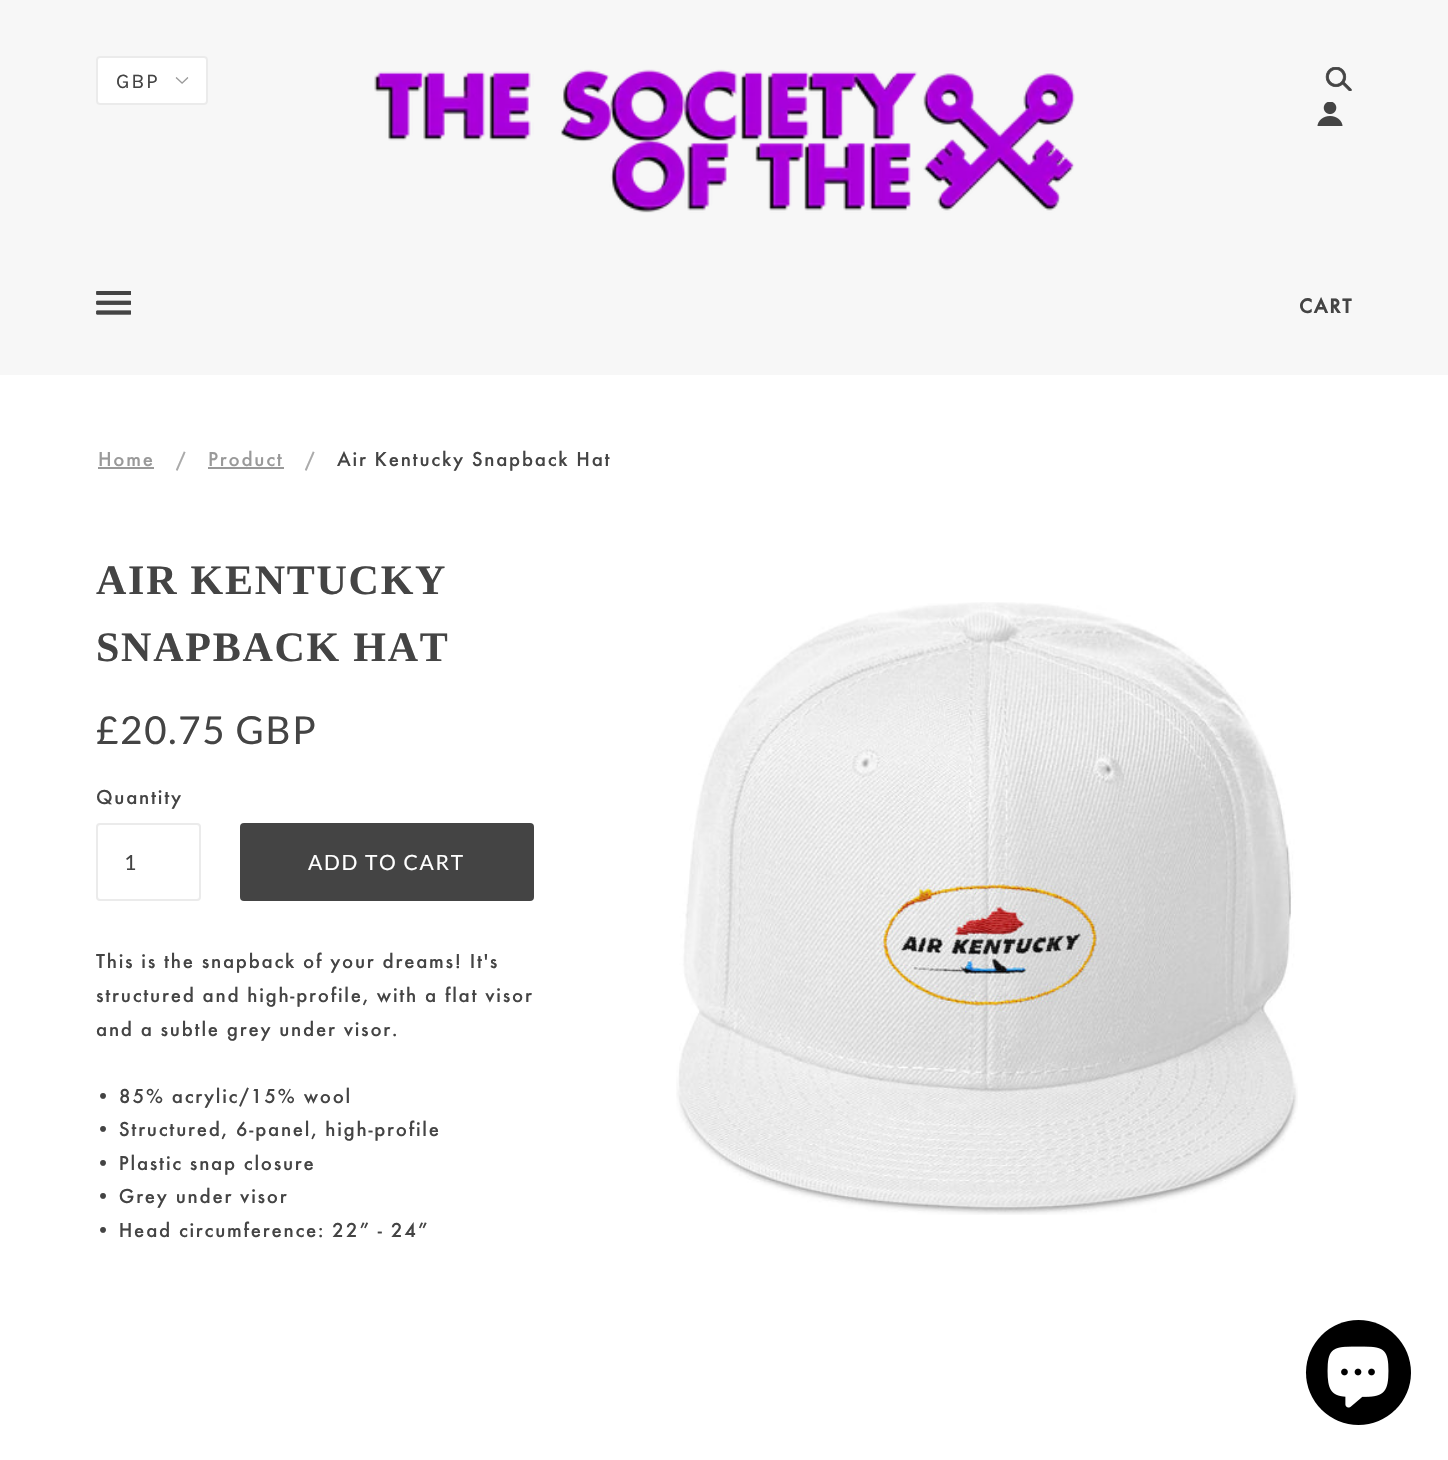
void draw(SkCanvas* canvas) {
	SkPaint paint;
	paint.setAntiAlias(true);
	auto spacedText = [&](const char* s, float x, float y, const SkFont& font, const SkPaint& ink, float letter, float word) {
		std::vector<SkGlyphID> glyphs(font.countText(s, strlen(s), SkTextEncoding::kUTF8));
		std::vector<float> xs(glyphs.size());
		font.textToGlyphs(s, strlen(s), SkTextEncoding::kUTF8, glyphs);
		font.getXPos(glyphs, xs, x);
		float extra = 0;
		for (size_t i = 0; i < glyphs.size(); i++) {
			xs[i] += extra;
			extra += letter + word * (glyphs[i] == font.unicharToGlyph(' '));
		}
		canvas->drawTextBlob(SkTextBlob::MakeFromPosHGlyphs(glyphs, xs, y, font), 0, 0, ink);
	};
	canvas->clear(0xffffffff);
	paint.setColor(0xfff7f7f7);
	canvas->drawRect(SkRect::MakeXYWH(0, 0, 1448, 375), paint);
	paint.setColor(0xffffffff);
	canvas->drawRoundRect(SkRect::MakeXYWH(96, 56, 112, 49), 4, 4, paint);
	canvas->drawImageRect(SkImages::DeferredFromEncodedData(SkData::MakeFromFileName("img1.png")), SkRect::MakeXYWH(175, 77, 14, 7), SkSamplingOptions());
	paint.setStroke(true);
	paint.setStrokeWidth(2);
	paint.setColor(0xffebebeb);
	canvas->drawRoundRect(SkRect::MakeXYWH(97, 57, 110, 47), 3, 3, paint);
	SkFont f1(fontMgr->matchFamilyStyle("Karla", SkFontStyle::Normal()), 21);
	f1.setSubpixel(true);
	paint.setStroke(false);
	paint.setColor(0xff444444);
	spacedText("GBP", 116, 88, f1, paint, 1.75, 0);
	canvas->drawImageRect(SkImages::DeferredFromEncodedData(SkData::MakeFromFileName("img2.png")), SkRect::MakeXYWH(374, 69, 701, 144), SkSamplingOptions());
	canvas->drawImageRect(SkImages::DeferredFromEncodedData(SkData::MakeFromFileName("img3.png")), SkRect::MakeXYWH(1325, 67, 27, 24), SkSamplingOptions());
	canvas->drawImageRect(SkImages::DeferredFromEncodedData(SkData::MakeFromFileName("img4.png")), SkRect::MakeXYWH(1317, 102, 26, 24), SkSamplingOptions());
	canvas->drawImageRect(SkImages::DeferredFromEncodedData(SkData::MakeFromFileName("img5.png")), SkRect::MakeXYWH(96, 291, 35, 24), SkSamplingOptions());
	SkFont f2(fontMgr->matchFamilyStyle("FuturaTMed", SkFontStyle::Bold()), 21);
	f2.setSubpixel(true);
	spacedText("CART", 1299, 313, f2, paint, 1.75, 0);
	SkFont f3(fontMgr->matchFamilyStyle("FuturaTMed", SkFontStyle::Normal()), 21);
	f3.setSubpixel(true);
	paint.setColor(0xff999999);
	spacedText("Home", 98, 466, f3, paint, 1.75, 0);
	canvas->drawRect(SkRect::MakeXYWH(98, 467, 56, 2), paint);
	paint.setColor(0xffaaaaaa);
	spacedText("/", 176, 467, f3, paint, 1.75, 0);
	paint.setColor(0xff999999);
	spacedText("Product", 208, 466, f3, paint, 1.75, 0);
	canvas->drawRect(SkRect::MakeXYWH(208, 467, 76, 2), paint);
	paint.setColor(0xffaaaaaa);
	spacedText("/", 305, 467, f3, paint, 1.75, 0);
	paint.setColor(0xff444444);
	spacedText("Air Kentucky Snapback Hat", 337, 466, f3, paint, 1.75, 0);
	SkFont f4(fontMgr->matchFamilyStyle("Liberation Serif", SkFontStyle::Bold()), 42);
	f4.setSubpixel(true);
	spacedText("AIR KENTUCKY", 96, 594, f4, paint, 1.75, 0);
	spacedText("SNAPBACK HAT", 96, 661, f4, paint, 1.75, 0);
	canvas->drawImageRect(SkImages::DeferredFromEncodedData(SkData::MakeFromFileName("img6.png")), SkRect::MakeXYWH(676, 602, 622, 613), SkSamplingOptions());
	SkFont f5(fontMgr->matchFamilyStyle("Lato", SkFontStyle::Normal()), 38.5);
	f5.setSubpixel(true);
	spacedText("£20.75 GBP", 96, 744, f5, paint, 1.75, 0);
	spacedText("Quantity", 96, 804, f3, paint, 1.75, 0);
	paint.setStroke(true);
	paint.setColor(0xffebebeb);
	canvas->drawRoundRect(SkRect::MakeXYWH(97, 824, 103, 76), 3, 3, paint);
	SkFont f6(fontMgr->matchFamilyStyle("Lato", SkFontStyle::Normal()), 21);
	f6.setSubpixel(true);
	paint.setStroke(false);
	paint.setColor(0xff444444);
	spacedText("1", 124, 870, f6, paint, 1, 0);
	canvas->drawRoundRect(SkRect::MakeXYWH(240, 823, 294, 78), 4, 4, paint);
	paint.setColor(0xffffffff);
	spacedText("ADD TO CART", 308, 870, f6, paint, 1.75, 0);
	paint.setColor(0xff444444);
	spacedText("This is the snapback of your dreams! It's", 96, 968, f3, paint, 1.75, 0);
	spacedText("structured and high-profile, with a flat visor", 96, 1002, f3, paint, 1.75, 0);
	spacedText("and a subtle grey under visor.", 96, 1036, f3, paint, 1.75, 0);
	spacedText("• 85% acrylic/15% wool", 96, 1103, f3, paint, 1.75, 0);
	spacedText("• Structured, 6-panel, high-profile", 96, 1136, f3, paint, 1.75, 0);
	spacedText("• Plastic snap closure", 96, 1170, f3, paint, 1.75, 0);
	spacedText("• Grey under visor", 96, 1203, f3, paint, 1.75, 0);
	spacedText("• Head circumference: 22” - 24”", 96, 1237, f3, paint, 1.75, 0);
	paint.setColor(0xff000000);
	canvas->drawCircle(1358.5, 1372.5, 52.5, paint);
	canvas->drawImageRect(SkImages::DeferredFromEncodedData(SkData::MakeFromFileName("img7.png")), SkRect::MakeXYWH(1327, 1346, 62, 62), SkSamplingOptions());
}
